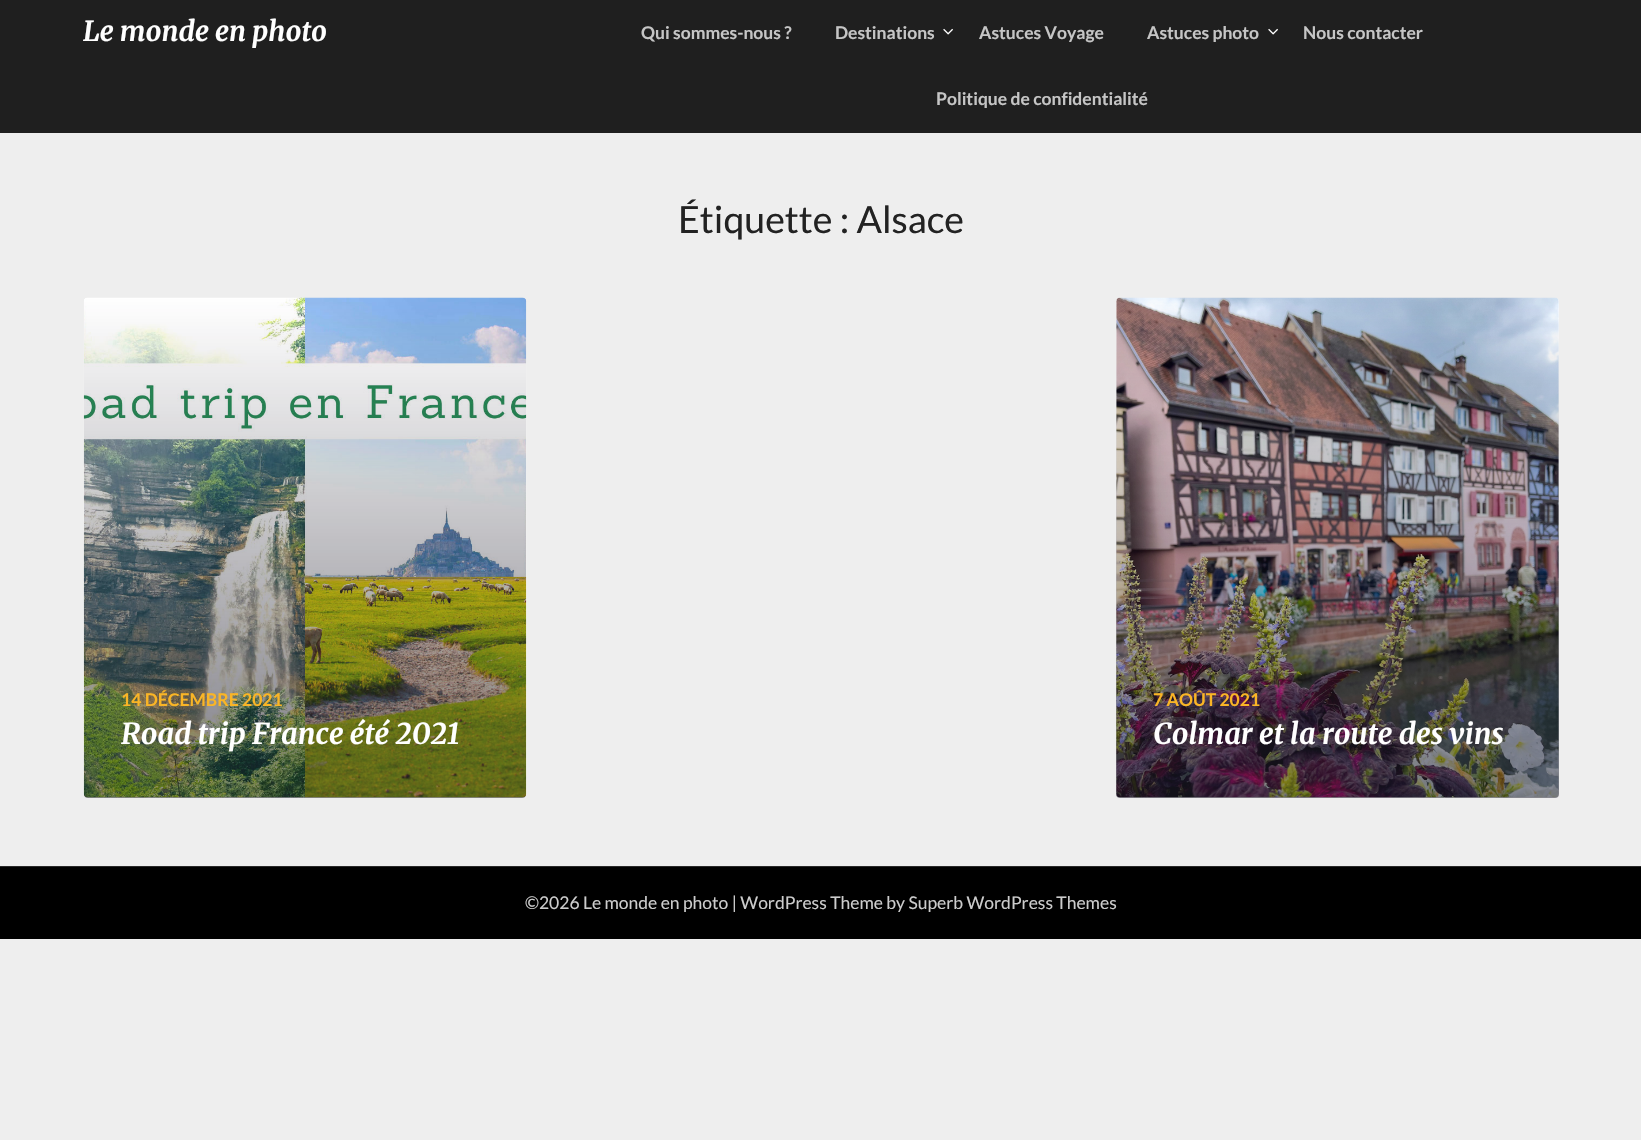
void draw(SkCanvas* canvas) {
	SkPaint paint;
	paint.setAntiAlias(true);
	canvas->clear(0xffeeeeee);
	paint.setColor(0xff1f1f1f);
	canvas->drawRect(SkRect::MakeXYWH(0, 0, 1641, 133), paint);
	SkFont f1(fontMgr->matchFamilyStyle("Merriweather", SkFontStyle::BoldItalic()), 27.5);
	f1.setSubpixel(true);
	paint.setColor(0xffffffff);
	canvas->drawString("Le monde en photo", 83, 41, f1, paint);
	SkFont f2(fontMgr->matchFamilyStyle("Lato", SkFontStyle::Bold()), 17.5);
	f2.setSubpixel(true);
	paint.setColor(0xffc5c5c5);
	canvas->drawString("Qui sommes-nous ?", 641, 39, f2, paint);
	canvas->drawString("Destinations", 835, 39, f2, paint);
	canvas->drawImageRect(SkImages::DeferredFromEncodedData(SkData::MakeFromFileName("img1.png")), SkRect::MakeXYWH(943, 28, 10, 7), SkSamplingOptions());
	canvas->drawString("Astuces Voyage", 979, 39, f2, paint);
	canvas->drawString("Astuces photo", 1147, 39, f2, paint);
	canvas->drawImageRect(SkImages::DeferredFromEncodedData(SkData::MakeFromFileName("img1.png")), SkRect::MakeXYWH(1268, 28, 10, 7), SkSamplingOptions());
	canvas->drawString("Nous contacter", 1303, 39, f2, paint);
	canvas->drawString("Politique de confidentialité", 936, 105, f2, paint);
	SkFont f3(fontMgr->matchFamilyStyle("Lato", SkFontStyle::Normal()), 37.5);
	f3.setSubpixel(true);
	paint.setColor(0xff222222);
	canvas->drawString("Étiquette : Alsace", 678, 233, f3, paint);
	paint.setColor(0xffffffff);
	canvas->drawRoundRect(SkRect::MakeXYWH(84, 298, 442, 500), 4, 4, paint);
	canvas->drawImageRect(SkImages::DeferredFromEncodedData(SkData::MakeFromFileName("img2.png")), SkRect::MakeXYWH(83, 297, 444, 501), SkSamplingOptions());
	{
		const SkColor colors[] = {0x00201e2c, 0x82201e2c, 0x85201e2c};
		const float stops[] = {0, 0.88, 0.89};
		const SkPoint ends[] = {{305, 297}, {305, 798}};
		paint.setShader(SkGradientShader::MakeLinear(ends, colors, stops, 3, SkTileMode::kClamp));
		paint.setAlpha(255);
	}
	canvas->drawRoundRect(SkRect::MakeXYWH(84, 298, 442, 500), 4, 4, paint);
	paint.setShader(nullptr);
	paint.setColor(0xfffab526);
	canvas->drawString("14 DÉCEMBRE 2021", 121, 706, f2, paint);
	SkFont f4(fontMgr->matchFamilyStyle("Merriweather", SkFontStyle::BoldItalic()), 28.75);
	f4.setSubpixel(true);
	paint.setColor(0xffffffff);
	canvas->drawString("Road trip France été 2021", 121, 744, f4, paint);
	canvas->drawRoundRect(SkRect::MakeXYWH(1116, 298, 443, 500), 4, 4, paint);
	canvas->drawImageRect(SkImages::DeferredFromEncodedData(SkData::MakeFromFileName("img3.png")), SkRect::MakeXYWH(1116, 297, 443, 501), SkSamplingOptions());
	{
		const SkColor colors[] = {0x00201e2c, 0x82201e2c, 0x85201e2c};
		const float stops[] = {0, 0.88, 0.89};
		const SkPoint ends[] = {{1338, 297}, {1338, 798}};
		paint.setShader(SkGradientShader::MakeLinear(ends, colors, stops, 3, SkTileMode::kClamp));
		paint.setAlpha(255);
	}
	canvas->drawRoundRect(SkRect::MakeXYWH(1116, 298, 443, 500), 4, 4, paint);
	paint.setShader(nullptr);
	paint.setColor(0xfffab526);
	canvas->drawString("7 AOÛT 2021", 1153, 706, f2, paint);
	paint.setColor(0xffffffff);
	canvas->drawString("Colmar et la route des vins", 1153, 744, f4, paint);
	paint.setColor(0xff000000);
	canvas->drawRect(SkRect::MakeXYWH(0, 867, 1641, 72), paint);
	paint.setColor(0xff292929);
	canvas->drawRect(SkRect::MakeXYWH(0, 866, 1641, 1), paint);
	SkFont f5(fontMgr->matchFamilyStyle("Lato", SkFontStyle::Normal()), 17.5);
	f5.setSubpixel(true);
	paint.setColor(0xffcccccc);
	canvas->drawString("©2026 Le monde en photo | WordPress Theme by Superb WordPress Themes", 525, 909, f5, paint);
}
